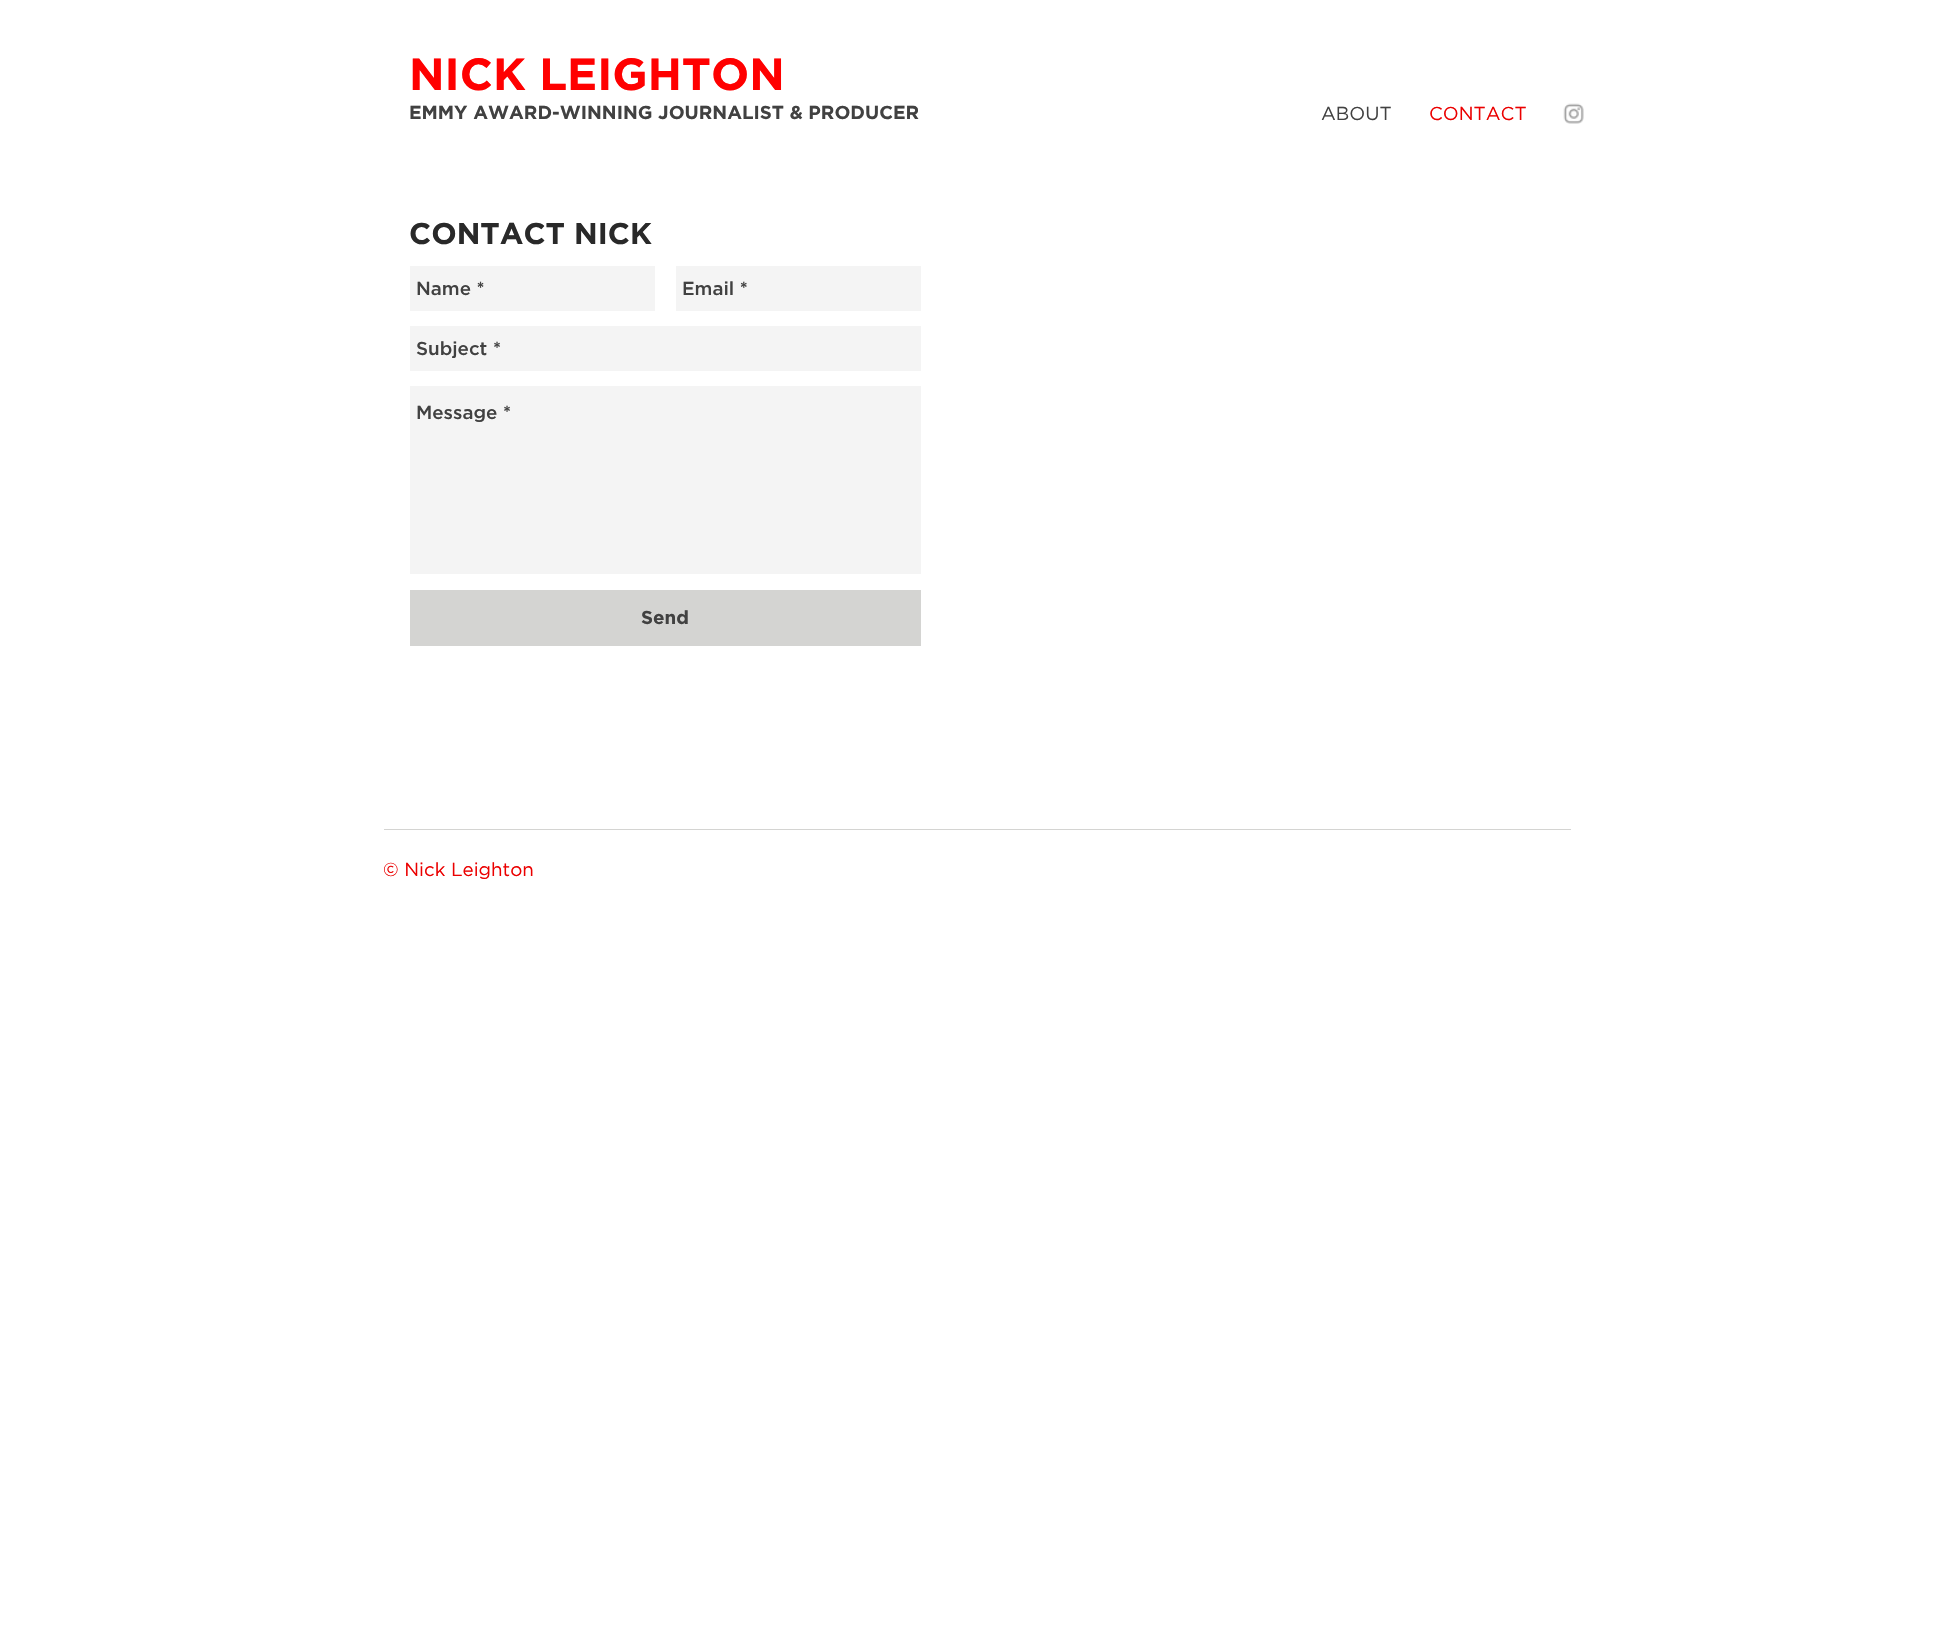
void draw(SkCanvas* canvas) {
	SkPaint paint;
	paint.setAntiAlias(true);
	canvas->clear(0xffffffff);
	SkFont f1(fontMgr->matchFamilyStyle("Gotham", SkFontStyle::Bold()), 45);
	f1.setSubpixel(true);
	paint.setColor(0xffff0000);
	canvas->drawString("NICK LEIGHTON", 409, 90, f1, paint);
	SkFont f2(fontMgr->matchFamilyStyle("Gotham", SkFontStyle::Bold()), 18.75);
	f2.setSubpixel(true);
	paint.setColor(0xff414141);
	canvas->drawString("EMMY AWARD-WINNING JOURNALIST & PRODUCER", 409, 119, f2, paint);
	SkFont f3(fontMgr->matchFamilyStyle("Gotham", SkFontStyle::Normal()), 18.75);
	f3.setSubpixel(true);
	canvas->drawString("ABOUT", 1321, 120, f3, paint);
	paint.setColor(0xffeb0000);
	canvas->drawString("CONTACT", 1429, 120, f3, paint);
	canvas->drawImageRect(SkImages::DeferredFromEncodedData(SkData::MakeFromFileName("img1.png")), SkRect::MakeXYWH(1563, 103, 21, 21), SkSamplingOptions());
	SkFont f4(fontMgr->matchFamilyStyle("Gotham", SkFontStyle::Bold()), 30);
	f4.setSubpixel(true);
	paint.setColor(0xff292929);
	canvas->drawString("CONTACT NICK", 409, 244, f4, paint);
	paint.setColor(0xfff4f4f4);
	canvas->drawRect(SkRect::MakeXYWH(410, 266, 245, 45), paint);
	SkFont f5(fontMgr->matchFamilyStyle("Gotham", SkFontStyle(500, SkFontStyle::kNormal_Width, SkFontStyle::kUpright_Slant)), 18.75);
	f5.setSubpixel(true);
	paint.setColor(0xff414141);
	canvas->drawString("Name *", 416, 295, f5, paint);
	paint.setColor(0xfff4f4f4);
	canvas->drawRect(SkRect::MakeXYWH(676, 266, 245, 45), paint);
	paint.setColor(0xff414141);
	canvas->drawString("Email *", 682, 295, f5, paint);
	paint.setColor(0xfff4f4f4);
	canvas->drawRect(SkRect::MakeXYWH(410, 326, 511, 45), paint);
	paint.setColor(0xff414141);
	canvas->drawString("Subject *", 416, 355, f5, paint);
	paint.setColor(0xfff4f4f4);
	canvas->drawRect(SkRect::MakeXYWH(410, 386, 511, 188), paint);
	paint.setColor(0xff414141);
	canvas->drawString("Message *", 416, 419, f5, paint);
	paint.setColor(0xffd4d4d2);
	canvas->drawRect(SkRect::MakeXYWH(410, 590, 511, 56), paint);
	paint.setColor(0xff414141);
	canvas->drawString("Send", 641, 624, f2, paint);
	paint.setColor(0xffd4d4d2);
	canvas->drawRect(SkRect::MakeXYWH(384, 829, 1187, 1), paint);
	paint.setColor(0xffeb0000);
	canvas->drawString("© Nick Leighton", 383, 876, f3, paint);
}
